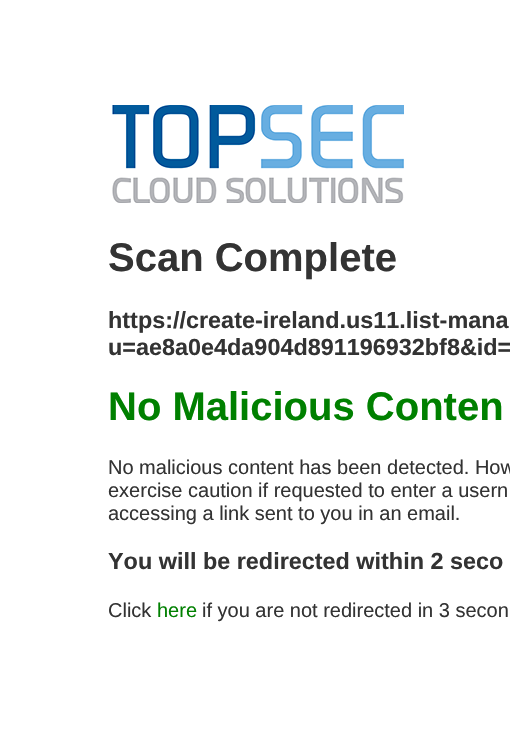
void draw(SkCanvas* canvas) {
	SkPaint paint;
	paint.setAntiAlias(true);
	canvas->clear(0xffffffff);
	canvas->drawImageRect(SkImages::DeferredFromEncodedData(SkData::MakeFromFileName("img1.png")), SkRect::MakeXYWH(112, 105, 292, 98), SkSamplingOptions());
	SkFont f1(fontMgr->matchFamilyStyle("Liberation Sans", SkFontStyle::Bold()), 40);
	f1.setSubpixel(true);
	paint.setColor(0xff333333);
	canvas->drawString("Scan Complete", 108, 271, f1, paint);
	SkFont f2(fontMgr->matchFamilyStyle("Liberation Sans", SkFontStyle::Bold()), 23.4);
	f2.setSubpixel(true);
	canvas->drawString("https://create-ireland.us11.list-mana", 108, 328, f2, paint);
	canvas->drawString("u=ae8a0e4da904d891196932bf8&id=", 108, 355, f2, paint);
	paint.setColor(0xff008000);
	canvas->drawString("No Malicious Conten", 108, 420, f1, paint);
	SkFont f3(fontMgr->matchFamilyStyle("Liberation Sans", SkFontStyle::Normal()), 20);
	f3.setSubpixel(true);
	paint.setColor(0xff333333);
	canvas->drawString("No malicious content has been detected. How", 108, 474, f3, paint);
	canvas->drawString("exercise caution if requested to enter a usern", 108, 497, f3, paint);
	canvas->drawString("accessing a link sent to you in an email.", 108, 520, f3, paint);
	canvas->drawString("You will be redirected within 2 seco", 108, 569, f2, paint);
	canvas->drawString("Click", 108, 617, f3, paint);
	paint.setColor(0xff008000);
	canvas->drawString("here", 157, 617, f3, paint);
	paint.setColor(0xff333333);
	canvas->drawString("if you are not redirected in 3 secon", 202, 617, f3, paint);
}
